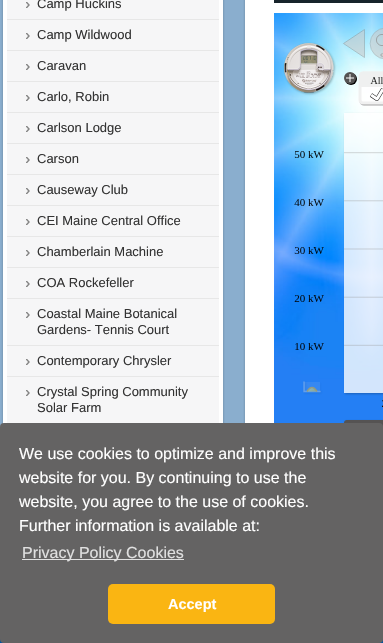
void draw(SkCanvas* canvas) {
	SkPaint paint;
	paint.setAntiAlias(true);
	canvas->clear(0xff8aaece);
	canvas->drawImageRect(SkImages::DeferredFromEncodedData(SkData::MakeFromFileName("img1.png")), SkRect::MakeXYWH(1, 0, 6, 425), SkSamplingOptions());
	canvas->drawImageRect(SkImages::DeferredFromEncodedData(SkData::MakeFromFileName("img2.png")), SkRect::MakeXYWH(219, 0, 6, 423), SkSamplingOptions());
	paint.setColor(0xfff6f6f7);
	canvas->drawRect(SkRect::MakeXYWH(7, 0, 212, 423), paint);
	canvas->drawImageRect(SkImages::DeferredFromEncodedData(SkData::MakeFromFileName("img3.png")), SkRect::MakeXYWH(26, 2, 4, 6), SkSamplingOptions());
	SkFont f1(fontMgr->matchFamilyStyle("Liberation Sans", SkFontStyle::Normal()), 13);
	f1.setSubpixel(true);
	paint.setColor(0xff333333);
	canvas->drawString("Camp Huckins", 37, 8, f1, paint);
	paint.setColor(0xffe7e7e7);
	canvas->drawRect(SkRect::MakeXYWH(7, 19, 212, 1), paint);
	canvas->drawImageRect(SkImages::DeferredFromEncodedData(SkData::MakeFromFileName("img3.png")), SkRect::MakeXYWH(26, 33, 4, 6), SkSamplingOptions());
	paint.setColor(0xff333333);
	canvas->drawString("Camp Wildwood", 37, 39, f1, paint);
	paint.setColor(0xffe7e7e7);
	canvas->drawRect(SkRect::MakeXYWH(7, 50, 212, 1), paint);
	canvas->drawImageRect(SkImages::DeferredFromEncodedData(SkData::MakeFromFileName("img3.png")), SkRect::MakeXYWH(26, 64, 4, 6), SkSamplingOptions());
	paint.setColor(0xff333333);
	canvas->drawString("Caravan", 37, 70, f1, paint);
	paint.setColor(0xffe7e7e7);
	canvas->drawRect(SkRect::MakeXYWH(7, 81, 212, 1), paint);
	canvas->drawImageRect(SkImages::DeferredFromEncodedData(SkData::MakeFromFileName("img3.png")), SkRect::MakeXYWH(26, 95, 4, 6), SkSamplingOptions());
	paint.setColor(0xff333333);
	canvas->drawString("Carlo, Robin", 37, 101, f1, paint);
	paint.setColor(0xffe7e7e7);
	canvas->drawRect(SkRect::MakeXYWH(7, 112, 212, 1), paint);
	canvas->drawImageRect(SkImages::DeferredFromEncodedData(SkData::MakeFromFileName("img3.png")), SkRect::MakeXYWH(26, 126, 4, 6), SkSamplingOptions());
	paint.setColor(0xff333333);
	canvas->drawString("Carlson Lodge", 37, 132, f1, paint);
	paint.setColor(0xffe7e7e7);
	canvas->drawRect(SkRect::MakeXYWH(7, 143, 212, 1), paint);
	canvas->drawImageRect(SkImages::DeferredFromEncodedData(SkData::MakeFromFileName("img3.png")), SkRect::MakeXYWH(26, 157, 4, 6), SkSamplingOptions());
	paint.setColor(0xff333333);
	canvas->drawString("Carson", 37, 163, f1, paint);
	paint.setColor(0xffe7e7e7);
	canvas->drawRect(SkRect::MakeXYWH(7, 174, 212, 1), paint);
	canvas->drawImageRect(SkImages::DeferredFromEncodedData(SkData::MakeFromFileName("img3.png")), SkRect::MakeXYWH(26, 188, 4, 6), SkSamplingOptions());
	paint.setColor(0xff333333);
	canvas->drawString("Causeway Club", 37, 194, f1, paint);
	paint.setColor(0xffe7e7e7);
	canvas->drawRect(SkRect::MakeXYWH(7, 205, 212, 1), paint);
	canvas->drawImageRect(SkImages::DeferredFromEncodedData(SkData::MakeFromFileName("img3.png")), SkRect::MakeXYWH(26, 219, 4, 6), SkSamplingOptions());
	paint.setColor(0xff333333);
	canvas->drawString("CEI Maine Central Office", 37, 225, f1, paint);
	paint.setColor(0xffe7e7e7);
	canvas->drawRect(SkRect::MakeXYWH(7, 236, 212, 1), paint);
	canvas->drawImageRect(SkImages::DeferredFromEncodedData(SkData::MakeFromFileName("img3.png")), SkRect::MakeXYWH(26, 250, 4, 6), SkSamplingOptions());
	paint.setColor(0xff333333);
	canvas->drawString("Chamberlain Machine", 37, 256, f1, paint);
	paint.setColor(0xffe7e7e7);
	canvas->drawRect(SkRect::MakeXYWH(7, 267, 212, 1), paint);
	canvas->drawImageRect(SkImages::DeferredFromEncodedData(SkData::MakeFromFileName("img3.png")), SkRect::MakeXYWH(26, 281, 4, 6), SkSamplingOptions());
	paint.setColor(0xff333333);
	canvas->drawString("COA Rockefeller", 37, 287, f1, paint);
	paint.setColor(0xffe7e7e7);
	canvas->drawRect(SkRect::MakeXYWH(7, 298, 212, 1), paint);
	canvas->drawImageRect(SkImages::DeferredFromEncodedData(SkData::MakeFromFileName("img3.png")), SkRect::MakeXYWH(26, 312, 4, 6), SkSamplingOptions());
	paint.setColor(0xff333333);
	canvas->drawString("Coastal Maine Botanical", 37, 318, f1, paint);
	canvas->drawString("Gardens- Tennis Court", 37, 334, f1, paint);
	paint.setColor(0xffe7e7e7);
	canvas->drawRect(SkRect::MakeXYWH(7, 345, 212, 1), paint);
	canvas->drawImageRect(SkImages::DeferredFromEncodedData(SkData::MakeFromFileName("img3.png")), SkRect::MakeXYWH(26, 359, 4, 6), SkSamplingOptions());
	paint.setColor(0xff333333);
	canvas->drawString("Contemporary Chrysler", 37, 365, f1, paint);
	paint.setColor(0xffe7e7e7);
	canvas->drawRect(SkRect::MakeXYWH(7, 376, 212, 1), paint);
	canvas->drawImageRect(SkImages::DeferredFromEncodedData(SkData::MakeFromFileName("img3.png")), SkRect::MakeXYWH(26, 390, 4, 6), SkSamplingOptions());
	paint.setColor(0xff333333);
	canvas->drawString("Crystal Spring Community", 37, 396, f1, paint);
	canvas->drawString("Solar Farm", 37, 412, f1, paint);
	paint.setColor(0xffffffff);
	canvas->drawRect(SkRect::MakeXYWH(249, 0, 134, 423), paint);
	canvas->drawImageRect(SkImages::DeferredFromEncodedData(SkData::MakeFromFileName("img4.png")), SkRect::MakeXYWH(243, 0, 6, 423), SkSamplingOptions());
	paint.setColor(0xff17242b);
	canvas->drawRect(SkRect::MakeXYWH(274, 0, 109, 3), paint);
	canvas->drawImageRect(SkImages::DeferredFromEncodedData(SkData::MakeFromFileName("img5.png")), SkRect::MakeXYWH(274, 13, 109, 414), SkSamplingOptions());
	paint.setColor(0xff00539f);
	canvas->drawRect(SkRect::MakeXYWH(0, 639, 383, 4), paint);
	paint.setColor(0xff646363);
	canvas->drawRoundRect(SkRect::MakeXYWH(0, 423, 383, 220), 4, 4, paint);
	SkFont f2(fontMgr->matchFamilyStyle("Liberation Sans", SkFontStyle::Normal()), 16);
	f2.setSubpixel(true);
	paint.setColor(0xffffffff);
	canvas->drawString("We use cookies to optimize and improve this", 19, 459, f2, paint);
	canvas->drawString("website for you. By continuing to use the", 19, 483, f2, paint);
	canvas->drawString("website, you agree to the use of cookies.", 19, 507, f2, paint);
	canvas->drawString("Further information is available at:", 19, 531, f2, paint);
	paint.setColor(0xffe0e0e0);
	canvas->drawRect(SkRect::MakeXYWH(22, 559, 162, 1), paint);
	canvas->drawString("Privacy Policy Cookies", 22, 558, f2, paint);
	paint.setColor(0xfffab512);
	canvas->drawRoundRect(SkRect::MakeXYWH(108, 584, 167, 40), 5, 5, paint);
	SkFont f3(fontMgr->matchFamilyStyle("Liberation Sans", SkFontStyle::Bold()), 14.5);
	f3.setSubpixel(true);
	paint.setColor(0xffffffff);
	canvas->drawString("Accept", 168, 609, f3, paint);
}
